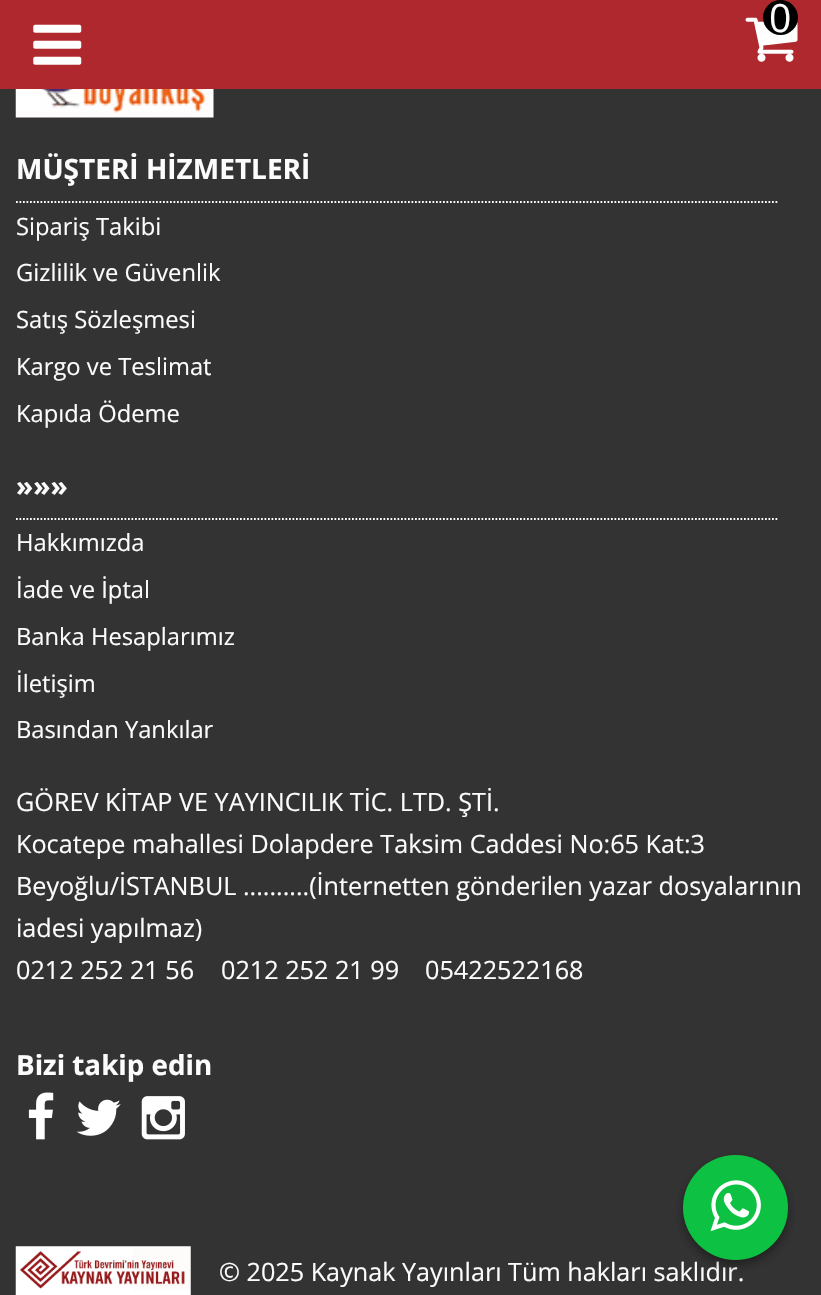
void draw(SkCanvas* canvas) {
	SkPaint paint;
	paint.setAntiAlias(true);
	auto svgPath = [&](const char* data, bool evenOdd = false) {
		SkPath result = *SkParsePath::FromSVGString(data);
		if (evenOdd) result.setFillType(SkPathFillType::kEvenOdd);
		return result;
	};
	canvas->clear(0xff333333);
	paint.setColor(0xffae282d);
	canvas->drawRect(SkRect::MakeXYWH(0, 0, 821, 89), paint);
	canvas->drawImageRect(SkImages::DeferredFromEncodedData(SkData::MakeFromFileName("img1.png")), SkRect::MakeXYWH(745, 17, 53, 45), SkSamplingOptions());
	paint.setColor(0xff000000);
	canvas->drawCircle(780.5, 17.5, 17.5, paint);
	SkFont f1(fontMgr->matchFamilyStyle("Open Sans", SkFontStyle::Normal()), 39);
	f1.setSubpixel(true);
	paint.setColor(0xfffcfcfc);
	canvas->drawString("0", 769, 32, f1, paint);
	canvas->drawImageRect(SkImages::DeferredFromEncodedData(SkData::MakeFromFileName("img2.png")), SkRect::MakeXYWH(33, 24, 49, 41), SkSamplingOptions());
	canvas->drawImageRect(SkImages::DeferredFromEncodedData(SkData::MakeFromFileName("img3.png")), SkRect::MakeXYWH(15, 89, 199, 29), SkSamplingOptions());
	SkFont f2(fontMgr->matchFamilyStyle("Open Sans", SkFontStyle::Bold()), 28);
	f2.setSubpixel(true);
	canvas->drawString("MÜŞTERİ HİZMETLERİ", 16, 179, f2, paint);
	paint.setStroke(true);
	paint.setStrokeWidth(1.8);
	paint.setColor(0xffffffff);
	paint.setPathEffect(SkDashPathEffect::Make({{1.75f, 1.75f}}, 0));
	canvas->drawPath(svgPath("M16 202H779"), paint);
	paint.setPathEffect(nullptr);
	SkFont f3(fontMgr->matchFamilyStyle("Open Sans", SkFontStyle::Normal()), 23.75);
	f3.setSubpixel(true);
	paint.setStroke(false);
	paint.setColor(0xfffcfcfc);
	canvas->drawString("Sipariş Takibi", 16, 235, f3, paint);
	canvas->drawString("Gizlilik ve Güvenlik", 16, 281, f3, paint);
	canvas->drawString("Satış Sözleşmesi", 16, 328, f3, paint);
	canvas->drawString("Kargo ve Teslimat", 16, 375, f3, paint);
	canvas->drawString("Kapıda Ödeme", 16, 422, f3, paint);
	canvas->drawString("»»»", 16, 496, f2, paint);
	paint.setStroke(true);
	paint.setColor(0xffffffff);
	paint.setPathEffect(SkDashPathEffect::Make({{1.75f, 1.75f}}, 0));
	canvas->drawPath(svgPath("M16 519H779"), paint);
	paint.setPathEffect(nullptr);
	paint.setStroke(false);
	paint.setColor(0xfffcfcfc);
	canvas->drawString("Hakkımızda", 16, 551, f3, paint);
	canvas->drawString("İade ve İptal", 16, 598, f3, paint);
	canvas->drawString("Banka Hesaplarımız", 16, 645, f3, paint);
	canvas->drawString("İletişim", 16, 692, f3, paint);
	canvas->drawString("Basından Yankılar", 16, 738, f3, paint);
	SkFont f4(fontMgr->matchFamilyStyle("Open Sans", SkFontStyle::Normal()), 25.2);
	f4.setSubpixel(true);
	canvas->drawString("GÖREV KİTAP VE YAYINCILIK TİC. LTD. ŞTİ.", 16, 811, f4, paint);
	canvas->drawString("Kocatepe mahallesi Dolapdere Taksim Caddesi No:65 Kat:3", 16, 853, f4, paint);
	canvas->drawString("Beyoğlu/İSTANBUL ..........(İnternetten gönderilen yazar dosyalarının", 16, 895, f4, paint);
	canvas->drawString("iadesi yapılmaz)", 16, 937, f4, paint);
	canvas->drawString("0212 252 21 56", 16, 979, f4, paint);
	canvas->drawString("0212 252 21 99", 221, 979, f4, paint);
	canvas->drawString("05422522168", 425, 979, f4, paint);
	SkFont f5(fontMgr->matchFamilyStyle("Open Sans", SkFontStyle::Bold()), 27.75);
	f5.setSubpixel(true);
	canvas->drawString("Bizi takip edin", 16, 1075, f5, paint);
	canvas->drawImageRect(SkImages::DeferredFromEncodedData(SkData::MakeFromFileName("img4.png")), SkRect::MakeXYWH(28, 1092, 26, 48), SkSamplingOptions());
	canvas->drawImageRect(SkImages::DeferredFromEncodedData(SkData::MakeFromFileName("img5.png")), SkRect::MakeXYWH(76, 1099, 45, 37), SkSamplingOptions());
	canvas->drawImageRect(SkImages::DeferredFromEncodedData(SkData::MakeFromFileName("img6.png")), SkRect::MakeXYWH(141, 1096, 44, 44), SkSamplingOptions());
	canvas->drawImageRect(SkImages::DeferredFromEncodedData(SkData::MakeFromFileName("img7.png")), SkRect::MakeXYWH(15, 1246, 176, 49), SkSamplingOptions());
	canvas->drawString("© 2025 Kaynak Yayınları Tüm hakları saklıdır.", 219, 1281, f4, paint);
	paint.setColor(0x3b000000);
	paint.setMaskFilter(SkMaskFilter::MakeBlur(kNormal_SkBlurStyle, 5));
	canvas->drawRoundRect(SkRect::MakeXYWH(683, 1160, 105, 105), 52.5, 52.5, paint);
	paint.setMaskFilter(nullptr);
	paint.setColor(0x29000000);
	paint.setMaskFilter(SkMaskFilter::MakeBlur(kNormal_SkBlurStyle, 5));
	canvas->drawRoundRect(SkRect::MakeXYWH(683, 1160, 105, 105), 52.5, 52.5, paint);
	paint.setMaskFilter(nullptr);
	paint.setColor(0xff0dc143);
	canvas->drawCircle(735.5, 1207.5, 52.5, paint);
	canvas->drawImageRect(SkImages::DeferredFromEncodedData(SkData::MakeFromFileName("img8.png")), SkRect::MakeXYWH(710, 1180, 51, 52), SkSamplingOptions());
}
